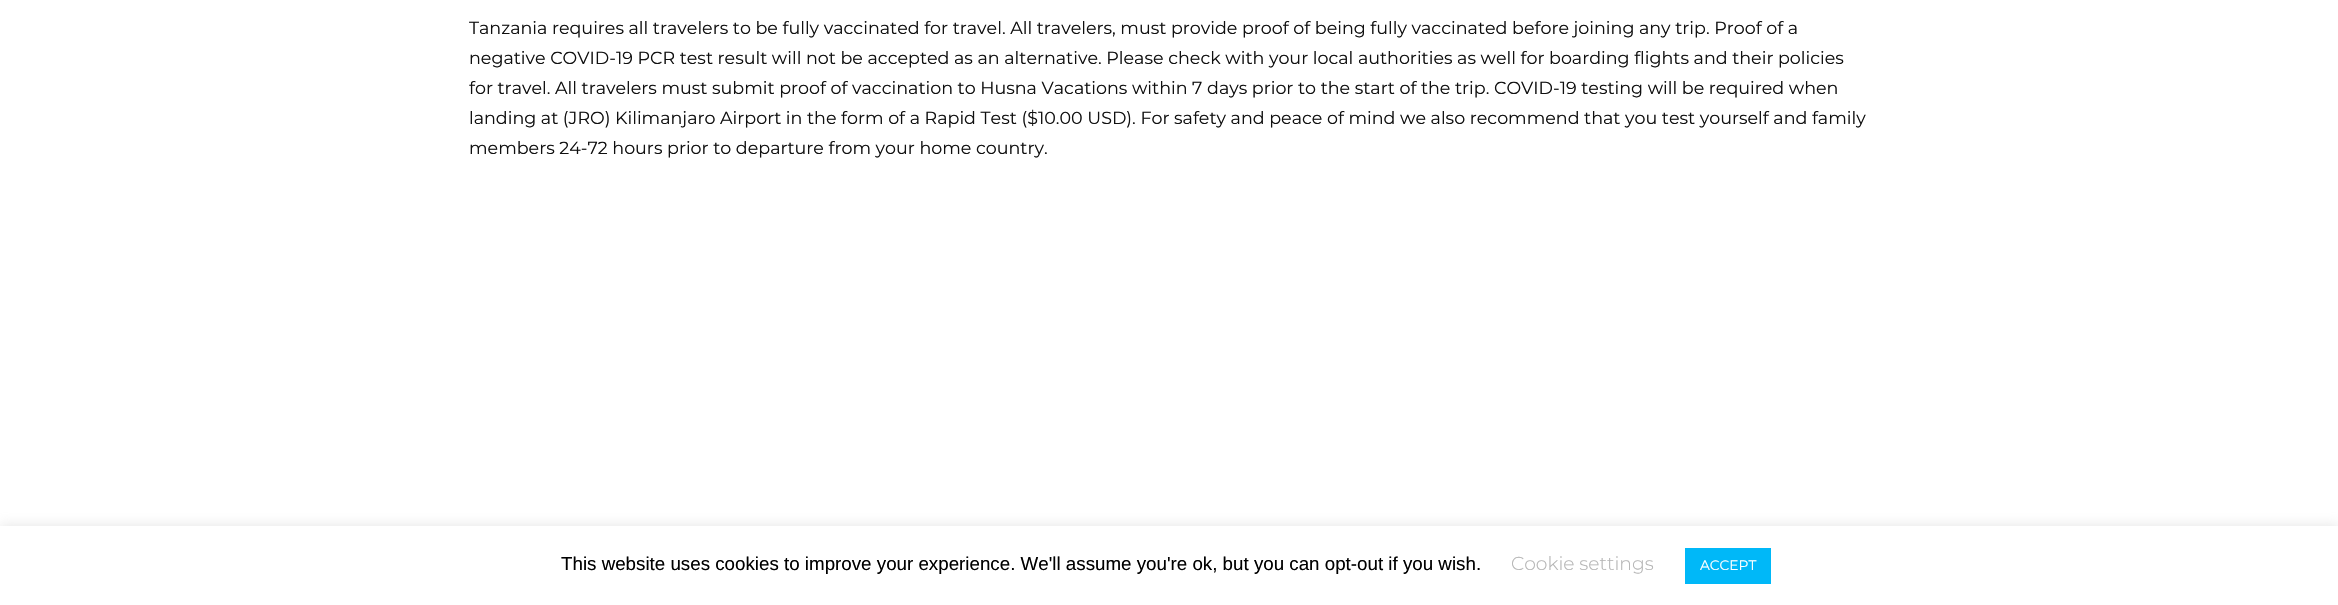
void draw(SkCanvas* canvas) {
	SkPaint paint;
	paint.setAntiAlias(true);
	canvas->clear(0xffffffff);
	SkFont f1(fontMgr->matchFamilyStyle("Montserrat", SkFontStyle::Normal()), 17.5);
	f1.setSubpixel(true);
	paint.setColor(0xff101010);
	canvas->drawString("Tanzania requires all travelers to be fully vaccinated for travel. All travelers, must provide proof of being fully vaccinated before joining any trip. Proof of a", 469, 34, f1, paint);
	canvas->drawString("negative COVID-19 PCR test result will not be accepted as an alternative. Please check with your local authorities as well for boarding flights and their policies", 469, 64, f1, paint);
	canvas->drawString("for travel. All travelers must submit proof of vaccination to Husna Vacations within 7 days prior to the start of the trip. COVID-19 testing will be required when", 469, 94, f1, paint);
	canvas->drawString("landing at (JRO) Kilimanjaro Airport in the form of a Rapid Test ($10.00 USD). For safety and peace of mind we also recommend that you test yourself and family", 469, 124, f1, paint);
	canvas->drawString("members 24-72 hours prior to departure from your home country.", 469, 154, f1, paint);
	paint.setColor(0x4dacabab);
	paint.setMaskFilter(SkMaskFilter::MakeBlur(kNormal_SkBlurStyle, 6));
	canvas->drawRect(SkRect::MakeXYWH(0, 525, 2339, 79), paint);
	paint.setMaskFilter(nullptr);
	paint.setColor(0xffffffff);
	canvas->drawRect(SkRect::MakeXYWH(0, 526, 2338, 79), paint);
	SkFont f2(fontMgr->matchFamilyStyle("Liberation Sans", SkFontStyle::Normal()), 18.75);
	f2.setSubpixel(true);
	paint.setColor(0xff000000);
	canvas->drawString("This website uses cookies to improve your experience. We'll assume you're ok, but you can opt-out if you wish.", 561, 570, f2, paint);
	SkFont f3(fontMgr->matchFamilyStyle("Montserrat", SkFontStyle(300, SkFontStyle::kNormal_Width, SkFontStyle::kUpright_Slant)), 18.75);
	f3.setSubpixel(true);
	paint.setColor(0xffb5b5b5);
	canvas->drawString("Cookie settings", 1511, 570, f3, paint);
	paint.setColor(0xff00b8f8);
	canvas->drawRect(SkRect::MakeXYWH(1685, 548, 86, 36), paint);
	SkFont f4(fontMgr->matchFamilyStyle("Montserrat", SkFontStyle::Normal()), 13.75);
	f4.setSubpixel(true);
	paint.setColor(0xffffffff);
	canvas->drawString("ACCEPT", 1700, 570, f4, paint);
}
